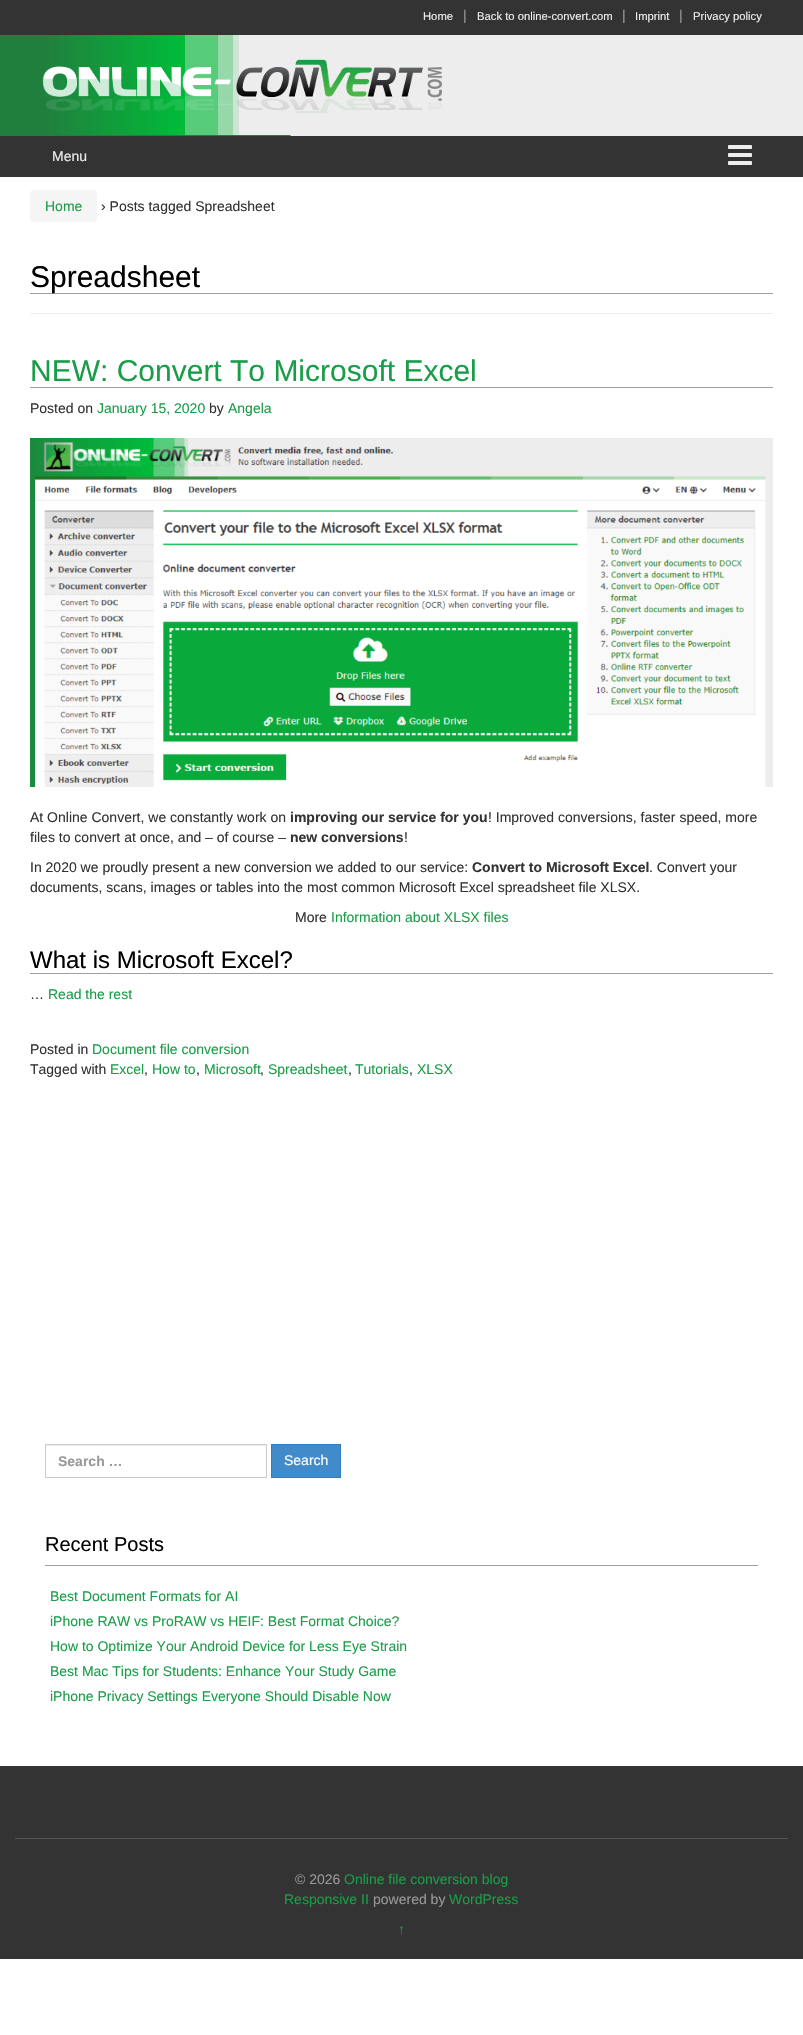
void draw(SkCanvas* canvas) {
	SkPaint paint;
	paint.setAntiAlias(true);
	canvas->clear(0xffffffff);
	canvas->drawImageRect(SkImages::DeferredFromEncodedData(SkData::MakeFromFileName("img1.png")), SkRect::MakeXYWH(0, 35, 803, 101), SkSamplingOptions());
	paint.setColor(0xff333333);
	canvas->drawRect(SkRect::MakeXYWH(0, 0, 803, 35), paint);
	SkFont f1(fontMgr->matchFamilyStyle("Liberation Sans", SkFontStyle::Normal()), 11.25);
	f1.setSubpixel(true);
	paint.setColor(0xffeeeeee);
	canvas->drawString("Home", 423, 20, f1, paint);
	SkFont f2(fontMgr->matchFamilyStyle("Liberation Sans", SkFontStyle::Normal()), 14);
	f2.setSubpixel(true);
	paint.setColor(0xff999999);
	canvas->drawString("|", 463, 20, f2, paint);
	paint.setColor(0xffeeeeee);
	canvas->drawString("Back to online-convert.com", 477, 20, f1, paint);
	paint.setColor(0xff999999);
	canvas->drawString("|", 622, 20, f2, paint);
	paint.setColor(0xffeeeeee);
	canvas->drawString("Imprint", 635, 20, f1, paint);
	paint.setColor(0xff999999);
	canvas->drawString("|", 679, 20, f2, paint);
	paint.setColor(0xffeeeeee);
	canvas->drawString("Privacy policy", 693, 20, f1, paint);
	canvas->drawImageRect(SkImages::DeferredFromEncodedData(SkData::MakeFromFileName("img2.png")), SkRect::MakeXYWH(42, 35, 400, 100), SkSamplingOptions());
	paint.setColor(0xff333333);
	canvas->drawRect(SkRect::MakeXYWH(0, 136, 803, 41), paint);
	paint.setColor(0xffeeeeee);
	canvas->drawString("Menu", 52, 161, f2, paint);
	canvas->drawImageRect(SkImages::DeferredFromEncodedData(SkData::MakeFromFileName("img3.png")), SkRect::MakeXYWH(728, 145, 24, 20), SkSamplingOptions());
	paint.setColor(0xfff5f5f5);
	canvas->drawRoundRect(SkRect::MakeXYWH(30, 190, 67, 32), 4, 4, paint);
	paint.setColor(0xff1a9d48);
	canvas->drawString("Home", 45, 211, f2, paint);
	paint.setColor(0xff333333);
	canvas->drawString("› Posts tagged Spreadsheet", 101, 211, f2, paint);
	paint.setColor(0xffeeeeee);
	canvas->drawRect(SkRect::MakeXYWH(30, 313, 743, 1), paint);
	paint.setColor(0xff9ea0a3);
	canvas->drawRect(SkRect::MakeXYWH(30, 293, 743, 1), paint);
	SkFont f3(fontMgr->matchFamilyStyle("Liberation Sans", SkFontStyle::Normal()), 30);
	f3.setSubpixel(true);
	paint.setColor(0xff000000);
	canvas->drawString("Spreadsheet", 30, 287, f3, paint);
	paint.setColor(0xff9ea0a3);
	canvas->drawRect(SkRect::MakeXYWH(30, 387, 743, 1), paint);
	paint.setColor(0xff1a9d48);
	canvas->drawString("NEW: Convert To Microsoft Excel", 30, 381, f3, paint);
	paint.setColor(0xff333333);
	canvas->drawString("Posted on", 30, 413, f2, paint);
	paint.setColor(0xff1a9d48);
	canvas->drawString("January 15, 2020", 97, 413, f2, paint);
	paint.setColor(0xff333333);
	canvas->drawString("by", 209, 413, f2, paint);
	paint.setColor(0xff1a9d48);
	canvas->drawString("Angela", 228, 413, f2, paint);
	canvas->drawImageRect(SkImages::DeferredFromEncodedData(SkData::MakeFromFileName("img4.png")), SkRect::MakeXYWH(30, 438, 743, 349), SkSamplingOptions());
	paint.setColor(0xff333333);
	canvas->drawString("At Online Convert, we constantly work on", 30, 822, f2, paint);
	SkFont f4(fontMgr->matchFamilyStyle("Liberation Sans", SkFontStyle::Bold()), 14);
	f4.setSubpixel(true);
	canvas->drawString("improving our service for you", 290, 822, f4, paint);
	canvas->drawString("! Improved conversions, faster speed, more", 488, 822, f2, paint);
	canvas->drawString("files to convert at once, and – of course –", 30, 842, f2, paint);
	canvas->drawString("new conversions", 290, 842, f4, paint);
	canvas->drawString("!", 404, 842, f2, paint);
	canvas->drawString("In 2020 we proudly present a new conversion we added to our service:", 30, 872, f2, paint);
	canvas->drawString("Convert to Microsoft Excel", 472, 872, f4, paint);
	canvas->drawString(". Convert your", 649, 872, f2, paint);
	canvas->drawString("documents, scans, images or tables into the most common Microsoft Excel spreadsheet file XLSX.", 30, 892, f2, paint);
	canvas->drawString("More", 295, 922, f2, paint);
	paint.setColor(0xff1a9d48);
	canvas->drawString("Information about XLSX files", 331, 922, f2, paint);
	paint.setColor(0xff9ea0a3);
	canvas->drawRect(SkRect::MakeXYWH(30, 973, 743, 1), paint);
	SkFont f5(fontMgr->matchFamilyStyle("Liberation Sans", SkFontStyle::Normal()), 24);
	f5.setSubpixel(true);
	paint.setColor(0xff000000);
	canvas->drawString("What is Microsoft Excel?", 30, 968, f5, paint);
	paint.setColor(0xff333333);
	canvas->drawString("…", 30, 999, f2, paint);
	paint.setColor(0xff1a9d48);
	canvas->drawString("Read the rest", 48, 999, f2, paint);
	paint.setColor(0xff333333);
	canvas->drawString("Posted in", 30, 1054, f2, paint);
	paint.setColor(0xff1a9d48);
	canvas->drawString("Document file conversion", 92, 1054, f2, paint);
	paint.setColor(0xff333333);
	canvas->drawString("Tagged with", 30, 1074, f2, paint);
	paint.setColor(0xff1a9d48);
	canvas->drawString("Excel", 110, 1074, f2, paint);
	paint.setColor(0xff333333);
	canvas->drawString(",", 144, 1074, f2, paint);
	paint.setColor(0xff1a9d48);
	canvas->drawString("How to", 152, 1074, f2, paint);
	paint.setColor(0xff333333);
	canvas->drawString(",", 196, 1074, f2, paint);
	paint.setColor(0xff1a9d48);
	canvas->drawString("Microsoft", 204, 1074, f2, paint);
	paint.setColor(0xff333333);
	canvas->drawString(",", 260, 1074, f2, paint);
	paint.setColor(0xff1a9d48);
	canvas->drawString("Spreadsheet", 268, 1074, f2, paint);
	paint.setColor(0xff333333);
	canvas->drawString(",", 348, 1074, f2, paint);
	paint.setColor(0xff1a9d48);
	canvas->drawString("Tutorials", 355, 1074, f2, paint);
	paint.setColor(0xff333333);
	canvas->drawString(",", 409, 1074, f2, paint);
	paint.setColor(0xff1a9d48);
	canvas->drawString("XLSX", 417, 1074, f2, paint);
	paint.setColor(0xffececec);
	canvas->drawRect(SkRect::MakeXYWH(46, 1445, 220, 1), paint);
	paint.setStroke(true);
	paint.setStrokeWidth(1);
	paint.setColor(0xffcccccc);
	canvas->drawRect(SkRect::MakeXYWH(45.5, 1444.5, 221, 33), paint);
	paint.setStroke(false);
	paint.setColor(0xff999999);
	canvas->drawString("Search …", 58, 1466, f4, paint);
	paint.setColor(0xff428bca);
	canvas->drawRect(SkRect::MakeXYWH(271.5, 1444.5, 69, 33), paint);
	paint.setStroke(true);
	paint.setColor(0xff357ebd);
	canvas->drawRect(SkRect::MakeXYWH(271.5, 1444.5, 69, 33), paint);
	paint.setStroke(false);
	paint.setColor(0xffffffff);
	canvas->drawString("Search", 284, 1465, f2, paint);
	paint.setColor(0xff9ea0a3);
	canvas->drawRect(SkRect::MakeXYWH(45, 1565, 713, 1), paint);
	SkFont f6(fontMgr->matchFamilyStyle("Liberation Sans", SkFontStyle::Normal()), 20);
	f6.setSubpixel(true);
	paint.setColor(0xff000000);
	canvas->drawString("Recent Posts", 45, 1551, f6, paint);
	paint.setColor(0xff1a9d48);
	canvas->drawString("Best Document Formats for AI", 50, 1601, f2, paint);
	canvas->drawString("iPhone RAW vs ProRAW vs HEIF: Best Format Choice?", 50, 1626, f2, paint);
	canvas->drawString("How to Optimize Your Android Device for Less Eye Strain", 50, 1651, f2, paint);
	canvas->drawString("Best Mac Tips for Students: Enhance Your Study Game", 50, 1676, f2, paint);
	canvas->drawString("iPhone Privacy Settings Everyone Should Disable Now", 50, 1701, f2, paint);
	paint.setColor(0xff333333);
	canvas->drawRect(SkRect::MakeXYWH(0, 1766, 803, 193), paint);
	paint.setColor(0xff555555);
	canvas->drawRect(SkRect::MakeXYWH(15, 1838, 773, 1), paint);
	paint.setColor(0xff999999);
	canvas->drawString("© 2026", 295, 1884, f2, paint);
	paint.setColor(0xff1a9d48);
	canvas->drawString("Online file conversion blog", 344, 1884, f2, paint);
	canvas->drawString("Responsive II", 284, 1904, f2, paint);
	paint.setColor(0xff999999);
	canvas->drawString("powered by", 373, 1904, f2, paint);
	paint.setColor(0xff1a9d48);
	canvas->drawString("WordPress", 449, 1904, f2, paint);
	canvas->drawString("↑", 398, 1934, f2, paint);
}
